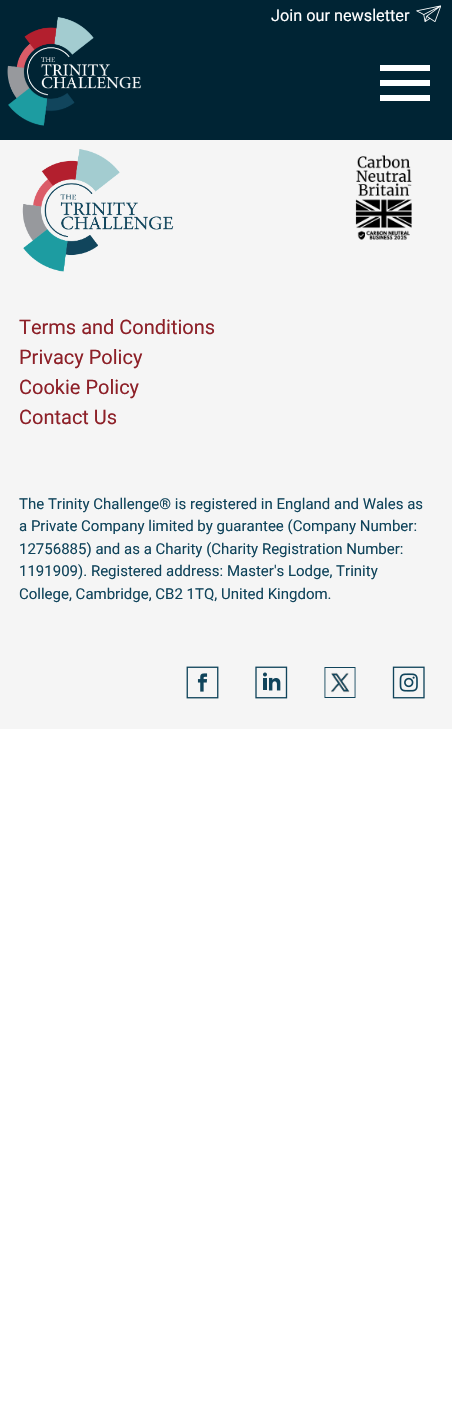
void draw(SkCanvas* canvas) {
	SkPaint paint;
	paint.setAntiAlias(true);
	canvas->clear(0xffffffff);
	paint.setColor(0xff002434);
	canvas->drawRect(SkRect::MakeXYWH(0, 0, 452, 140), paint);
	SkFont f1(fontMgr->matchFamilyStyle("Roboto", SkFontStyle::Normal()), 16.25);
	f1.setSubpixel(true);
	paint.setColor(0xffffffff);
	canvas->drawString("Join our newsletter", 271, 21, f1, paint);
	canvas->drawImageRect(SkImages::DeferredFromEncodedData(SkData::MakeFromFileName("img1.png")), SkRect::MakeXYWH(416, 5, 25, 17), SkSamplingOptions());
	canvas->drawRect(SkRect::MakeXYWH(380, 80, 50, 6), paint);
	canvas->drawRect(SkRect::MakeXYWH(380, 65, 50, 6), paint);
	canvas->drawRect(SkRect::MakeXYWH(380, 95, 50, 6), paint);
	canvas->drawImageRect(SkImages::DeferredFromEncodedData(SkData::MakeFromFileName("img2.png")), SkRect::MakeXYWH(7, 17, 135, 109), SkSamplingOptions());
	paint.setColor(0xfff5f5f5);
	canvas->drawRect(SkRect::MakeXYWH(0, 140, 452, 589), paint);
	canvas->drawImageRect(SkImages::DeferredFromEncodedData(SkData::MakeFromFileName("img3.png")), SkRect::MakeXYWH(22, 149, 152, 123), SkSamplingOptions());
	canvas->drawImageRect(SkImages::DeferredFromEncodedData(SkData::MakeFromFileName("img4.png")), SkRect::MakeXYWH(355, 155, 57, 85), SkSamplingOptions());
	SkFont f2(fontMgr->matchFamilyStyle("Roboto", SkFontStyle::Normal()), 20);
	f2.setSubpixel(true);
	paint.setColor(0xff8d2028);
	canvas->drawString("Terms and Conditions", 19, 334, f2, paint);
	canvas->drawString("Privacy Policy", 19, 364, f2, paint);
	canvas->drawString("Cookie Policy", 19, 394, f2, paint);
	canvas->drawString("Contact Us", 19, 424, f2, paint);
	SkFont f3(fontMgr->matchFamilyStyle("Roboto", SkFontStyle::Normal()), 15);
	f3.setSubpixel(true);
	paint.setColor(0xff10445b);
	canvas->drawString("The Trinity Challenge® is registered in England and Wales as", 19, 509, f3, paint);
	canvas->drawString("a Private Company limited by guarantee (Company Number:", 19, 531, f3, paint);
	canvas->drawString("12756885) and as a Charity (Charity Registration Number:", 19, 554, f3, paint);
	canvas->drawString("1191909). Registered address: Master's Lodge, Trinity", 19, 576, f3, paint);
	canvas->drawString("College, Cambridge, CB2 1TQ, United Kingdom.", 19, 599, f3, paint);
	canvas->drawImageRect(SkImages::DeferredFromEncodedData(SkData::MakeFromFileName("img5.png")), SkRect::MakeXYWH(186, 666, 33, 33), SkSamplingOptions());
	canvas->drawImageRect(SkImages::DeferredFromEncodedData(SkData::MakeFromFileName("img6.png")), SkRect::MakeXYWH(255, 666, 33, 33), SkSamplingOptions());
	canvas->drawImageRect(SkImages::DeferredFromEncodedData(SkData::MakeFromFileName("img7.png")), SkRect::MakeXYWH(324, 667, 32, 31), SkSamplingOptions());
	canvas->drawImageRect(SkImages::DeferredFromEncodedData(SkData::MakeFromFileName("img8.png")), SkRect::MakeXYWH(392, 666, 33, 33), SkSamplingOptions());
}
